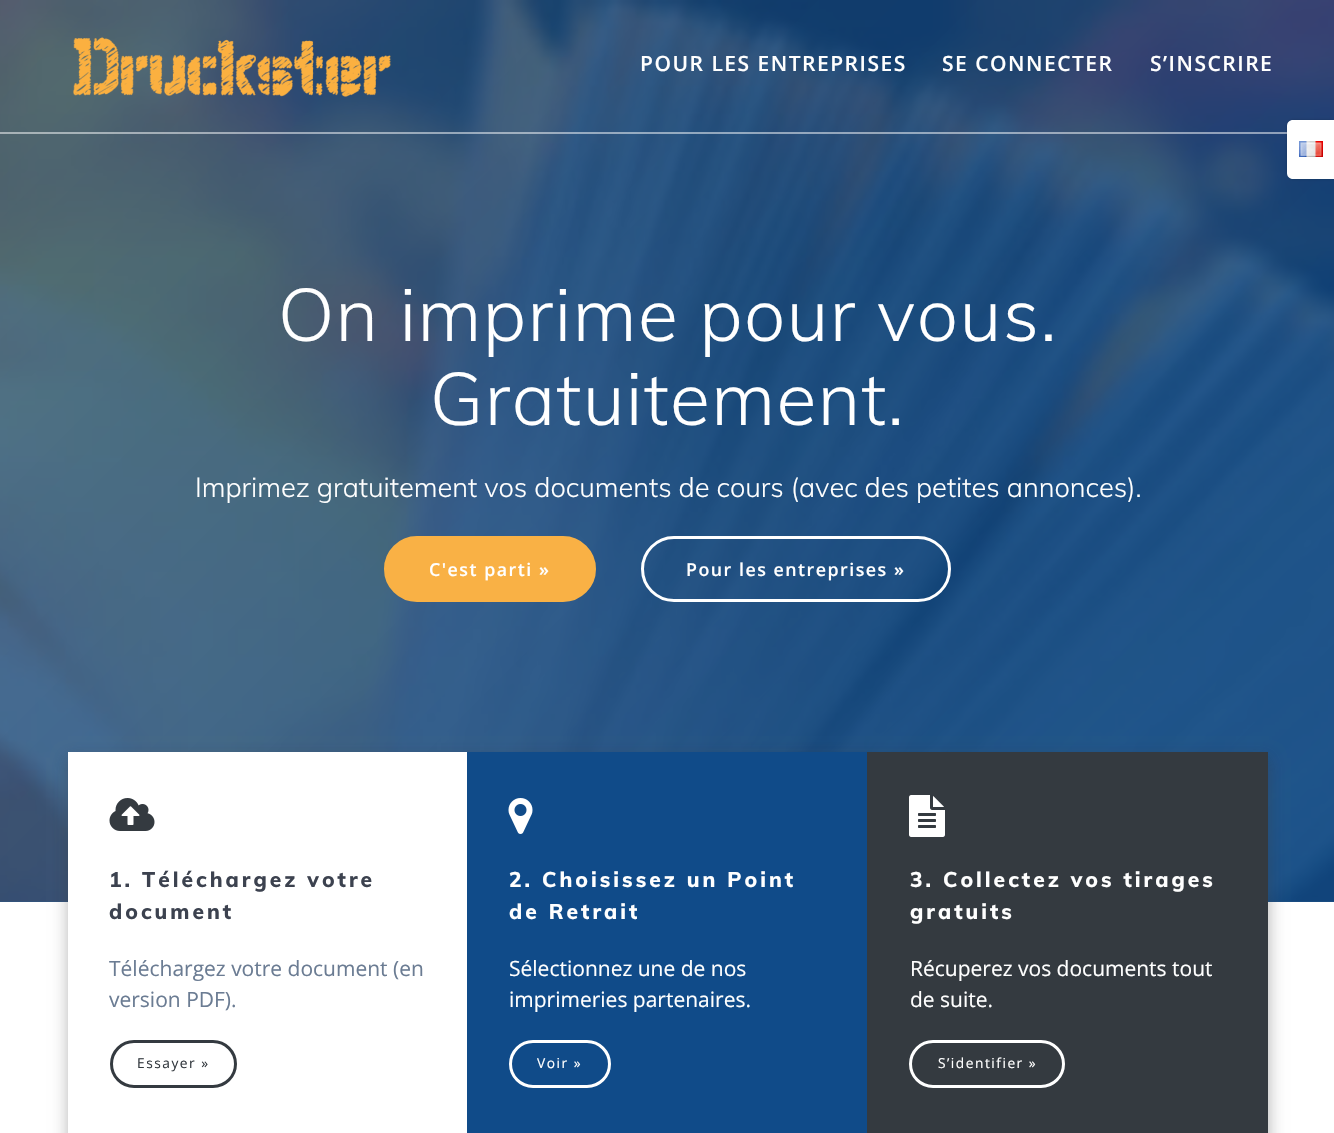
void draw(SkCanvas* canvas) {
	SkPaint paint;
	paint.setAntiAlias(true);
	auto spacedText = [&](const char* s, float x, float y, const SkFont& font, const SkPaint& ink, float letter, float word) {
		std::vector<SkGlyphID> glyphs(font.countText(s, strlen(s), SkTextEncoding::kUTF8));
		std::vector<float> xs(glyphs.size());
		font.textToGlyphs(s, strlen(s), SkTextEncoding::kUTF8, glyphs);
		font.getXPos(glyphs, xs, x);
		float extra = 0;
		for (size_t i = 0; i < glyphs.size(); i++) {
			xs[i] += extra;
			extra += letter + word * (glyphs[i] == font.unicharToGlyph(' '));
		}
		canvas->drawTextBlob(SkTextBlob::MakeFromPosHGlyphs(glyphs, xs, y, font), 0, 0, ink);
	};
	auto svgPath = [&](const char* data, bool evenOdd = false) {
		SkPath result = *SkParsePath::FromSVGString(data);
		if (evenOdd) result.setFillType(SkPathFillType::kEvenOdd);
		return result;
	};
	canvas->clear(0xffffffff);
	paint.setColor(0xff8d7d6f);
	canvas->drawRect(SkRect::MakeXYWH(0, 901, 1334, 1), paint);
	canvas->drawImageRect(SkImages::DeferredFromEncodedData(SkData::MakeFromFileName("img3.png")), SkRect::MakeXYWH(0, 0, 1334, 902), SkSamplingOptions());
	{
		const SkColor colors[] = {0xa8104b89, 0xe0104b89};
		const float stops[] = {0, 1};
		const SkPoint ends[] = {{108, -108}, {1227, 1010}};
		paint.setShader(SkGradientShader::MakeLinear(ends, colors, stops, 2, SkTileMode::kClamp));
		paint.setAlpha(255);
	}
	canvas->drawRect(SkRect::MakeXYWH(0, 0, 1334, 902), paint);
	paint.setShader(nullptr);
	paint.setColor(0x80ffffff);
	canvas->drawRect(SkRect::MakeXYWH(0, 132, 1287, 2), paint);
	canvas->drawImageRect(SkImages::DeferredFromEncodedData(SkData::MakeFromFileName("img1.png")), SkRect::MakeXYWH(73, 37, 318, 60), SkSamplingOptions());
	SkFont f1(fontMgr->matchFamilyStyle("Open Sans", SkFontStyle(600, SkFontStyle::kNormal_Width, SkFontStyle::kUpright_Slant)), 21);
	f1.setSubpixel(true);
	paint.setColor(0xffffffff);
	spacedText("POUR LES ENTREPRISES", 640, 71, f1, paint, 1.5, 0);
	spacedText("SE CONNECTER", 942, 71, f1, paint, 1.5, 0);
	spacedText("S’INSCRIRE", 1150, 71, f1, paint, 1.5, 0);
	paint.setColor(0x1a000000);
	paint.setMaskFilter(SkMaskFilter::MakeBlur(kNormal_SkBlurStyle, 1));
	canvas->drawRoundRect(SkRect::MakeXYWH(1286, 119, 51, 61), 8, 8, paint);
	paint.setMaskFilter(nullptr);
	paint.setColor(0xffffffff);
	canvas->drawPath(svgPath("M1293 120H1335V179H1293C1289.5 179 1287 176.5 1287 173V126C1287 122.5 1289.5 120 1293 120Z"), paint);
	canvas->drawImageRect(SkImages::DeferredFromEncodedData(SkData::MakeFromFileName("img2.png")), SkRect::MakeXYWH(1299, 141, 24, 16), SkSamplingOptions());
	SkFont f2(fontMgr->matchFamilyStyle("Muli", SkFontStyle(300, SkFontStyle::kNormal_Width, SkFontStyle::kUpright_Slant)), 73.5);
	f2.setSubpixel(true);
	spacedText("On imprime pour vous.", 278, 341, f2, paint, 1.35, 0);
	spacedText("Gratuitement.", 430, 425, f2, paint, 1.35, 0);
	SkFont f3(fontMgr->matchFamilyStyle("Muli", SkFontStyle(300, SkFontStyle::kNormal_Width, SkFontStyle::kUpright_Slant)), 27.3);
	f3.setSubpixel(true);
	canvas->drawString("Imprimez gratuitement vos documents de cours (avec des petites annonces).", 195, 497, f3, paint);
	paint.setColor(0xfff9b145);
	canvas->drawRoundRect(SkRect::MakeXYWH(385.5, 537.5, 209, 63), 31.5, 31.5, paint);
	paint.setStroke(true);
	paint.setStrokeWidth(3);
	canvas->drawRoundRect(SkRect::MakeXYWH(385.5, 537.5, 209, 63), 31.5, 31.5, paint);
	SkFont f4(fontMgr->matchFamilyStyle("Open Sans", SkFontStyle(600, SkFontStyle::kNormal_Width, SkFontStyle::kUpright_Slant)), 17.8);
	f4.setSubpixel(true);
	paint.setStroke(false);
	paint.setColor(0xffffffff);
	spacedText("C'est parti »", 429, 576, f4, paint, 1.5, 0);
	paint.setStroke(true);
	canvas->drawRoundRect(SkRect::MakeXYWH(642.5, 537.5, 307, 63), 31.5, 31.5, paint);
	paint.setStroke(false);
	spacedText("Pour les entreprises »", 686, 576, f4, paint, 1.5, 0);
	paint.setColor(0x14000000);
	paint.setMaskFilter(SkMaskFilter::MakeBlur(kNormal_SkBlurStyle, 7.5));
	canvas->drawRect(SkRect::MakeXYWH(68, 758, 1201, 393), paint);
	paint.setMaskFilter(nullptr);
	paint.setColor(0x4d4a4a4a);
	paint.setMaskFilter(SkMaskFilter::MakeBlur(kNormal_SkBlurStyle, 7.5));
	canvas->drawRect(SkRect::MakeXYWH(68, 758, 1201, 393), paint);
	paint.setMaskFilter(nullptr);
	paint.setColor(0xffffffff);
	canvas->drawRect(SkRect::MakeXYWH(68, 752, 399, 381), paint);
	canvas->drawImageRect(SkImages::DeferredFromEncodedData(SkData::MakeFromFileName("img4.png")), SkRect::MakeXYWH(109, 798, 46, 33), SkSamplingOptions());
	SkFont f5(fontMgr->matchFamilyStyle("Muli", SkFontStyle(800, SkFontStyle::kNormal_Width, SkFontStyle::kUpright_Slant)), 21);
	f5.setSubpixel(true);
	paint.setColor(0xff3c424f);
	spacedText("1. Téléchargez votre", 109, 887, f5, paint, 3, 0);
	spacedText("document", 109, 919, f5, paint, 3, 0);
	SkFont f6(fontMgr->matchFamilyStyle("Open Sans", SkFontStyle::Normal()), 21);
	f6.setSubpixel(true);
	paint.setColor(0xff6b7c93);
	canvas->drawString("Téléchargez votre document (en", 109, 976, f6, paint);
	canvas->drawString("version PDF).", 109, 1007, f6, paint);
	paint.setStroke(true);
	paint.setColor(0xff343a40);
	canvas->drawRoundRect(SkRect::MakeXYWH(111.5, 1041.5, 124, 45), 22.5, 22.5, paint);
	SkFont f7(fontMgr->matchFamilyStyle("Open Sans", SkFontStyle::Normal()), 13.75);
	f7.setSubpixel(true);
	paint.setStroke(false);
	spacedText("Essayer »", 137, 1068, f7, paint, 1.5, 0);
	paint.setColor(0xff104b89);
	canvas->drawRect(SkRect::MakeXYWH(467, 752, 400, 381), paint);
	canvas->drawImageRect(SkImages::DeferredFromEncodedData(SkData::MakeFromFileName("img5.png")), SkRect::MakeXYWH(508, 798, 25, 36), SkSamplingOptions());
	paint.setColor(0xffffffff);
	spacedText("2. Choisissez un Point", 509, 887, f5, paint, 3, 0);
	spacedText("de Retrait", 509, 919, f5, paint, 3, 0);
	canvas->drawString("Sélectionnez une de nos", 509, 976, f6, paint);
	canvas->drawString("imprimeries partenaires.", 509, 1007, f6, paint);
	paint.setStroke(true);
	canvas->drawRoundRect(SkRect::MakeXYWH(510.5, 1041.5, 99, 45), 22.5, 22.5, paint);
	paint.setStroke(false);
	spacedText("Voir »", 537, 1068, f7, paint, 1.5, 0);
	paint.setColor(0xff343a40);
	canvas->drawRect(SkRect::MakeXYWH(867, 752, 401, 381), paint);
	canvas->drawImageRect(SkImages::DeferredFromEncodedData(SkData::MakeFromFileName("img6.png")), SkRect::MakeXYWH(909, 795, 36, 42), SkSamplingOptions());
	paint.setColor(0xffffffff);
	spacedText("3. Collectez vos tirages", 910, 887, f5, paint, 3, 0);
	spacedText("gratuits", 910, 919, f5, paint, 3, 0);
	canvas->drawString("Récuperez vos documents tout", 910, 976, f6, paint);
	canvas->drawString("de suite.", 910, 1007, f6, paint);
	paint.setStroke(true);
	canvas->drawRoundRect(SkRect::MakeXYWH(910.5, 1041.5, 153, 45), 22.5, 22.5, paint);
	paint.setStroke(false);
	spacedText("S’identifier »", 938, 1068, f7, paint, 1.5, 0);
}
